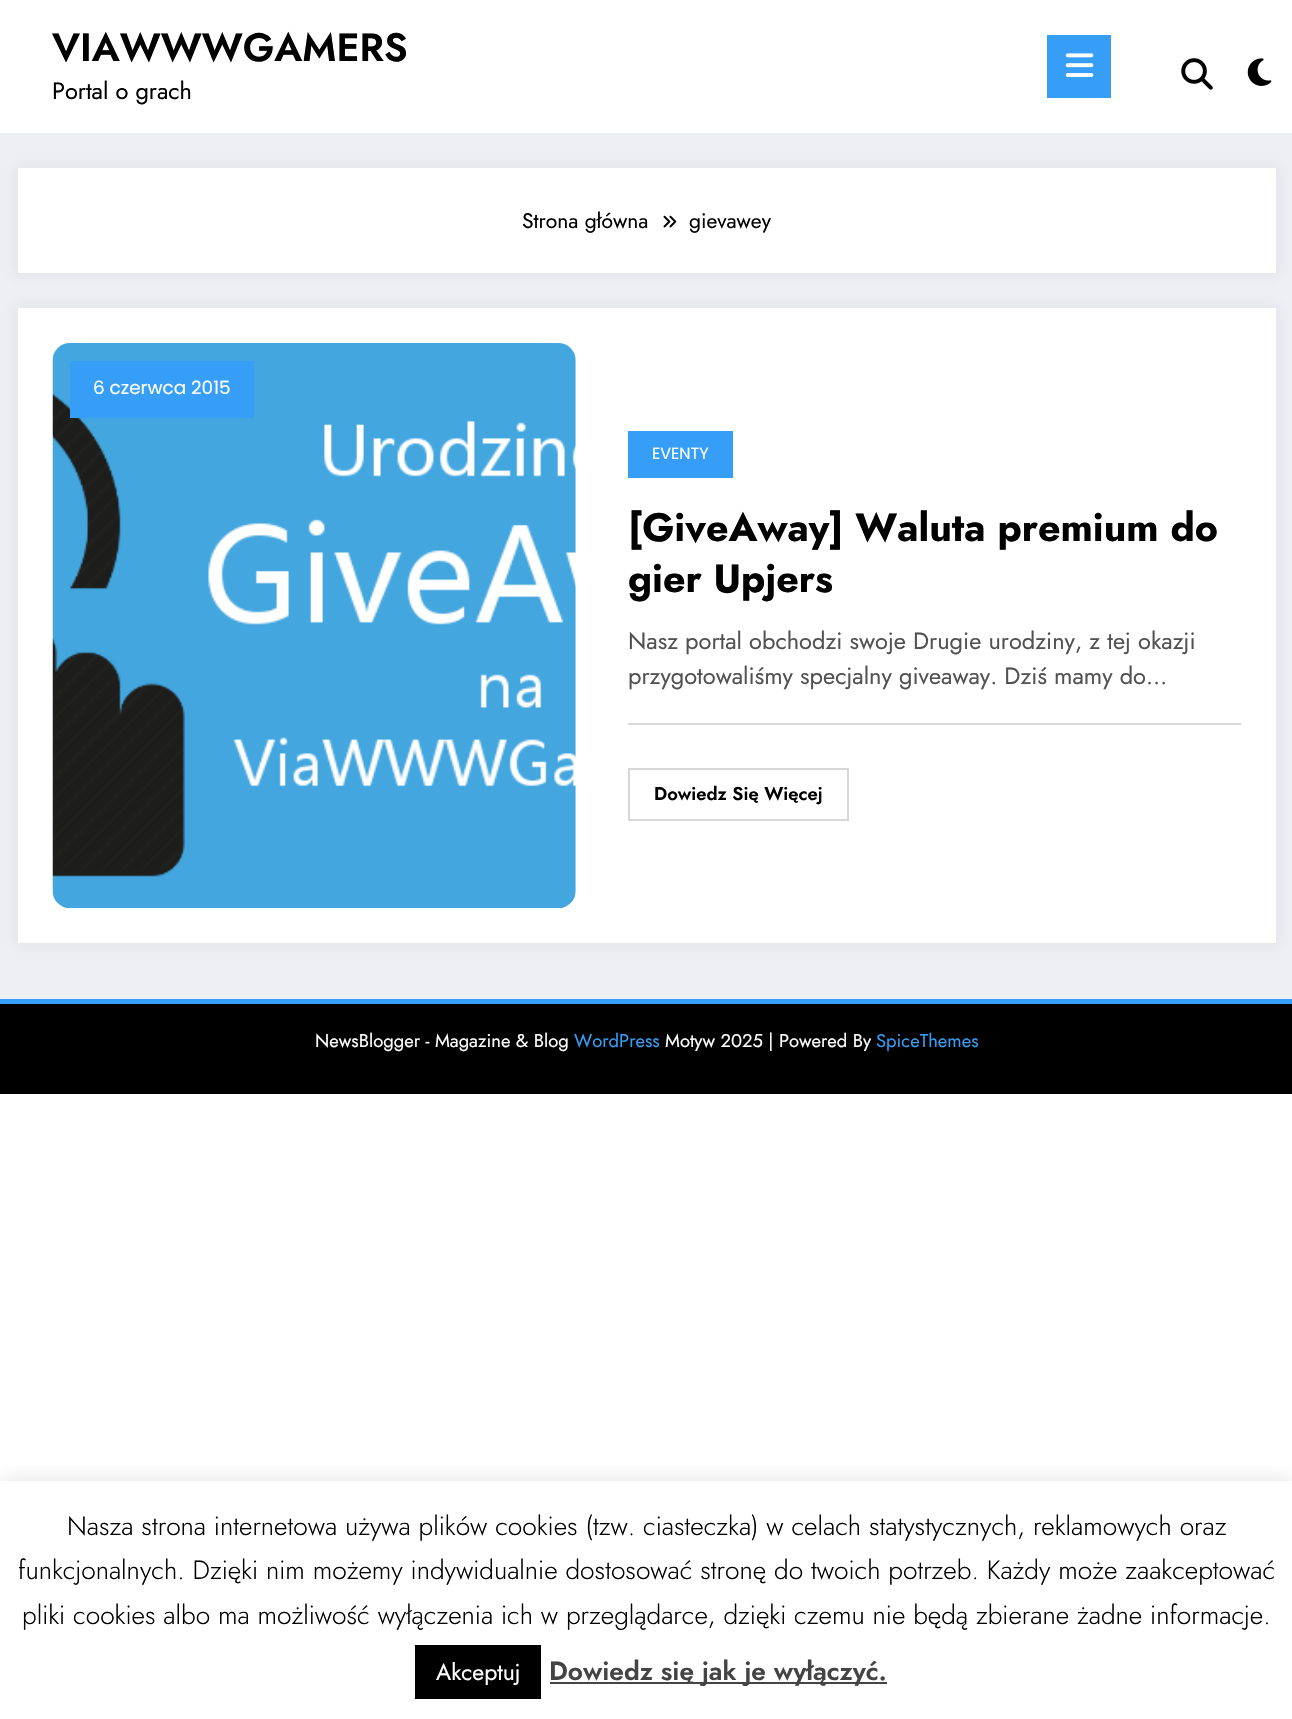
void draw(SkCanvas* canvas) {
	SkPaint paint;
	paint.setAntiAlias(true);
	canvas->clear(0xffffffff);
	paint.setColor(0xffeeeef5);
	canvas->drawRect(SkRect::MakeXYWH(0, 133, 1292, 866), paint);
	SkFont f1(fontMgr->matchFamilyStyle("Jost", SkFontStyle(600, SkFontStyle::kNormal_Width, SkFontStyle::kUpright_Slant)), 39.4);
	f1.setSubpixel(true);
	paint.setColor(0xff000000);
	canvas->drawString("VIAWWWGAMERS", 52, 61, f1, paint);
	SkFont f2(fontMgr->matchFamilyStyle("Jost", SkFontStyle::Normal()), 23.6);
	f2.setSubpixel(true);
	canvas->drawString("Portal o grach", 52, 99, f2, paint);
	paint.setColor(0xff369ef6);
	canvas->drawRect(SkRect::MakeXYWH(1047, 35, 64, 63), paint);
	canvas->drawImageRect(SkImages::DeferredFromEncodedData(SkData::MakeFromFileName("img1.png")), SkRect::MakeXYWH(1065, 53, 29, 24), SkSamplingOptions());
	canvas->drawImageRect(SkImages::DeferredFromEncodedData(SkData::MakeFromFileName("img2.png")), SkRect::MakeXYWH(1181, 58, 32, 32), SkSamplingOptions());
	canvas->drawImageRect(SkImages::DeferredFromEncodedData(SkData::MakeFromFileName("img3.png")), SkRect::MakeXYWH(1247, 58, 25, 28), SkSamplingOptions());
	paint.setColor(0x0d171723);
	paint.setMaskFilter(SkMaskFilter::MakeBlur(kNormal_SkBlurStyle, 7));
	canvas->drawRect(SkRect::MakeXYWH(14, 165, 1265, 112), paint);
	paint.setMaskFilter(nullptr);
	paint.setColor(0xffffffff);
	canvas->drawRect(SkRect::MakeXYWH(18, 168, 1258, 105), paint);
	SkFont f3(fontMgr->matchFamilyStyle("Jost", SkFontStyle::Normal()), 21);
	f3.setSubpixel(true);
	paint.setColor(0xff000000);
	canvas->drawString("Strona główna", 522, 228, f3, paint);
	canvas->drawImageRect(SkImages::DeferredFromEncodedData(SkData::MakeFromFileName("img4.png")), SkRect::MakeXYWH(663, 215, 14, 13), SkSamplingOptions());
	canvas->drawString("gievawey", 689, 228, f3, paint);
	paint.setColor(0x0d171723);
	paint.setMaskFilter(SkMaskFilter::MakeBlur(kNormal_SkBlurStyle, 7));
	canvas->drawRect(SkRect::MakeXYWH(14, 305, 1265, 642), paint);
	paint.setMaskFilter(nullptr);
	paint.setColor(0xffffffff);
	canvas->drawRect(SkRect::MakeXYWH(18, 308, 1258, 635), paint);
	canvas->drawImageRect(SkImages::DeferredFromEncodedData(SkData::MakeFromFileName("img5.png")), SkRect::MakeXYWH(52, 343, 524, 566), SkSamplingOptions());
	paint.setColor(0xff369ef6);
	canvas->drawRect(SkRect::MakeXYWH(70, 361, 184, 57), paint);
	SkFont f4(fontMgr->matchFamilyStyle("Poppins", SkFontStyle::Normal()), 18.4);
	f4.setSubpixel(true);
	paint.setColor(0xffffffff);
	canvas->drawString("6 czerwca 2015", 93, 394, f4, paint);
	paint.setColor(0xff369ef6);
	canvas->drawRect(SkRect::MakeXYWH(628, 431, 105, 47), paint);
	SkFont f5(fontMgr->matchFamilyStyle("Poppins", SkFontStyle::Normal()), 16);
	f5.setSubpixel(true);
	paint.setColor(0xffffffff);
	canvas->drawString("EVENTY", 652, 459, f5, paint);
	SkFont f6(fontMgr->matchFamilyStyle("Jost", SkFontStyle::Bold()), 39.4);
	f6.setSubpixel(true);
	paint.setColor(0xff000000);
	canvas->drawString("[GiveAway] Waluta premium do", 628, 541, f6, paint);
	canvas->drawString("gier Upjers", 628, 592, f6, paint);
	paint.setColor(0xffd7d7d7);
	canvas->drawRect(SkRect::MakeXYWH(628, 723, 613, 2), paint);
	paint.setColor(0xff525252);
	canvas->drawString("Nasz portal obchodzi swoje Drugie urodziny, z tej okazji", 628, 649, f2, paint);
	canvas->drawString("przygotowaliśmy specjalny giveaway. Dziś mamy do…", 628, 684, f2, paint);
	paint.setStroke(true);
	paint.setStrokeWidth(2);
	paint.setColor(0xffd7d7d7);
	canvas->drawRect(SkRect::MakeXYWH(629, 769, 219, 51), paint);
	SkFont f7(fontMgr->matchFamilyStyle("Jost", SkFontStyle(600, SkFontStyle::kNormal_Width, SkFontStyle::kUpright_Slant)), 18.4);
	f7.setSubpixel(true);
	paint.setStroke(false);
	paint.setColor(0xff000000);
	canvas->drawString("Dowiedz Się Więcej", 654, 800, f7, paint);
	canvas->drawRect(SkRect::MakeXYWH(0, 1004, 1292, 90), paint);
	paint.setColor(0xff369ef6);
	canvas->drawRect(SkRect::MakeXYWH(0, 999, 1292, 5), paint);
	SkFont f8(fontMgr->matchFamilyStyle("Jost", SkFontStyle::Normal()), 18.4);
	f8.setSubpixel(true);
	paint.setColor(0xffffffff);
	canvas->drawString("NewsBlogger - Magazine & Blog", 315, 1047, f8, paint);
	paint.setColor(0xff369ef6);
	canvas->drawString("WordPress", 574, 1047, f8, paint);
	paint.setColor(0xffffffff);
	canvas->drawString("Motyw 2025 | Powered By", 665, 1047, f8, paint);
	paint.setColor(0xff369ef6);
	canvas->drawString("SpiceThemes", 876, 1047, f8, paint);
	canvas->save();
	canvas->clipRect(SkRect::MakeXYWH(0, 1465, 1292, 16));
	paint.setColor(0x4dacabab);
	paint.setMaskFilter(SkMaskFilter::MakeBlur(kNormal_SkBlurStyle, 9));
	canvas->drawRect(SkRect::MakeXYWH(0, 1479, 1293, 240), paint);
	paint.setMaskFilter(nullptr);
	canvas->restore();
	SkFont f9(fontMgr->matchFamilyStyle("Jost", SkFontStyle(300, SkFontStyle::kNormal_Width, SkFontStyle::kUpright_Slant)), 26.25);
	f9.setSubpixel(true);
	paint.setColor(0xff000000);
	canvas->drawString("Nasza strona internetowa używa plików cookies (tzw. ciasteczka) w celach statystycznych, reklamowych oraz", 67, 1535, f9, paint);
	canvas->drawString("funkcjonalnych. Dzięki nim możemy indywidualnie dostosować stronę do twoich potrzeb. Każdy może zaakceptować", 18, 1579, f9, paint);
	canvas->drawString("pliki cookies albo ma możliwość wyłączenia ich w przeglądarce, dzięki czemu nie będą zbierane żadne informacje.", 22, 1624, f9, paint);
	canvas->drawRect(SkRect::MakeXYWH(415, 1645, 126, 54), paint);
	SkFont f10(fontMgr->matchFamilyStyle("Jost", SkFontStyle::Normal()), 23);
	f10.setSubpixel(true);
	paint.setColor(0xffffffff);
	canvas->drawString("Akceptuj", 436, 1680, f10, paint);
	paint.setColor(0xff444444);
	canvas->drawRect(SkRect::MakeXYWH(550, 1682, 337, 2), paint);
	SkFont f11(fontMgr->matchFamilyStyle("Jost", SkFontStyle(600, SkFontStyle::kNormal_Width, SkFontStyle::kUpright_Slant)), 26.25);
	f11.setSubpixel(true);
	canvas->drawString("Dowiedz się jak je wyłączyć.", 549, 1680, f11, paint);
}
